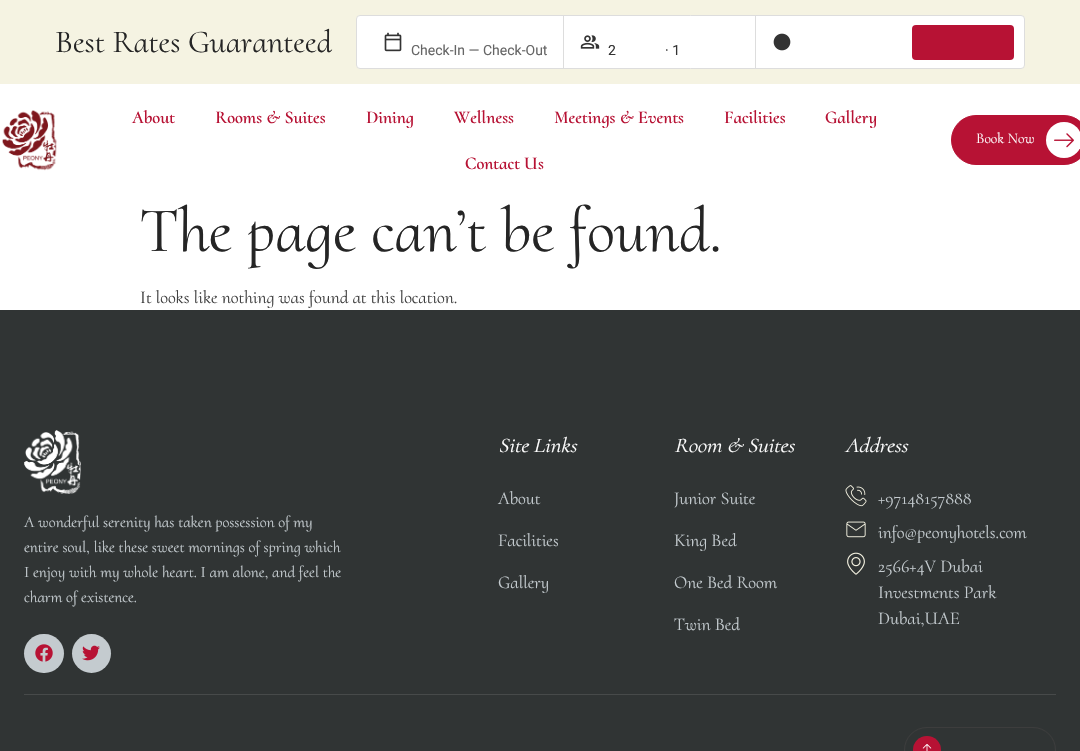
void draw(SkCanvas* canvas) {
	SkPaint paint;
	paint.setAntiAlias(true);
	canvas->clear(0xffffffff);
	paint.setColor(0xfff5f3e2);
	canvas->drawRect(SkRect::MakeXYWH(0, 0, 1080, 84), paint);
	SkFont f1(fontMgr->matchFamilyStyle("Cormorant Upright", SkFontStyle::Normal()), 32);
	f1.setSubpixel(true);
	paint.setColor(0xff252525);
	canvas->drawString("Best Rates Guaranteed", 55, 52, f1, paint);
	paint.setColor(0xffffffff);
	canvas->drawRoundRect(SkRect::MakeXYWH(356.5, 15.5, 668, 53), 3.5, 3.5, paint);
	paint.setStroke(true);
	paint.setStrokeWidth(1);
	paint.setColor(0xffdddddd);
	canvas->drawRoundRect(SkRect::MakeXYWH(356.5, 15.5, 668, 53), 3.5, 3.5, paint);
	canvas->drawImageRect(SkImages::DeferredFromEncodedData(SkData::MakeFromFileName("img1.png")), SkRect::MakeXYWH(384, 32, 18, 20), SkSamplingOptions());
	SkFont f2(fontMgr->matchFamilyStyle("Roboto", SkFontStyle::Normal()), 14);
	f2.setSubpixel(true);
	paint.setStroke(false);
	paint.setColor(0xff666666);
	canvas->drawString("Check-In — Check-Out", 411, 55, f2, paint);
	paint.setColor(0xffdddddd);
	canvas->drawRect(SkRect::MakeXYWH(563, 16, 1, 52), paint);
	canvas->drawImageRect(SkImages::DeferredFromEncodedData(SkData::MakeFromFileName("img2.png")), SkRect::MakeXYWH(580, 35, 20, 14), SkSamplingOptions());
	paint.setColor(0xff333333);
	canvas->drawString("2", 608, 55, f2, paint);
	canvas->drawString("· 1", 665, 55, f2, paint);
	paint.setColor(0xffdddddd);
	canvas->drawRect(SkRect::MakeXYWH(755, 16, 1, 52), paint);
	canvas->drawImageRect(SkImages::DeferredFromEncodedData(SkData::MakeFromFileName("img3.png")), SkRect::MakeXYWH(773, 33, 18, 18), SkSamplingOptions());
	paint.setColor(0xffb71234);
	canvas->drawRoundRect(SkRect::MakeXYWH(912, 25, 102, 35), 4, 4, paint);
	canvas->drawImageRect(SkImages::DeferredFromEncodedData(SkData::MakeFromFileName("img4.png")), SkRect::MakeXYWH(2, 110, 55, 61), SkSamplingOptions());
	SkFont f3(fontMgr->matchFamilyStyle("Cormorant Upright", SkFontStyle(600, SkFontStyle::kNormal_Width, SkFontStyle::kUpright_Slant)), 18);
	f3.setSubpixel(true);
	canvas->drawString("About", 132, 123, f3, paint);
	canvas->drawString("Rooms & Suites", 215, 123, f3, paint);
	canvas->drawString("Dining", 366, 123, f3, paint);
	canvas->drawString("Wellness", 454, 123, f3, paint);
	canvas->drawString("Meetings & Events", 554, 123, f3, paint);
	canvas->drawString("Facilities", 724, 123, f3, paint);
	canvas->drawString("Gallery", 825, 123, f3, paint);
	canvas->drawString("Contact Us", 465, 169, f3, paint);
	canvas->drawRoundRect(SkRect::MakeXYWH(951.5, 115.5, 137, 49), 24.5, 24.5, paint);
	paint.setStroke(true);
	canvas->drawRoundRect(SkRect::MakeXYWH(951.5, 115.5, 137, 49), 24.5, 24.5, paint);
	SkFont f4(fontMgr->matchFamilyStyle("Cormorant Upright", SkFontStyle::Normal()), 15);
	f4.setSubpixel(true);
	paint.setStroke(false);
	paint.setColor(0xffffffff);
	canvas->drawString("Book Now", 976, 143, f4, paint);
	canvas->drawCircle(1064, 140, 18, paint);
	canvas->drawImageRect(SkImages::DeferredFromEncodedData(SkData::MakeFromFileName("img5.png")), SkRect::MakeXYWH(1054, 133, 20, 15), SkSamplingOptions());
	SkFont f5(fontMgr->matchFamilyStyle("Cormorant Upright", SkFontStyle::Normal()), 64);
	f5.setSubpixel(true);
	paint.setColor(0xff252525);
	canvas->drawString("The page can’t be found.", 140, 251, f5, paint);
	SkFont f6(fontMgr->matchFamilyStyle("Cormorant Upright", SkFontStyle::Normal()), 18);
	f6.setSubpixel(true);
	paint.setColor(0xff3d3d3d);
	canvas->drawString("It looks like nothing was found at this location.", 140, 303, f6, paint);
	paint.setColor(0xff303434);
	canvas->drawRect(SkRect::MakeXYWH(0, 310, 1080, 441), paint);
	canvas->drawImageRect(SkImages::DeferredFromEncodedData(SkData::MakeFromFileName("img6.png")), SkRect::MakeXYWH(24, 430, 57, 64), SkSamplingOptions());
	SkFont f7(fontMgr->matchFamilyStyle("Cormorant Upright", SkFontStyle::Normal()), 16);
	f7.setSubpixel(true);
	paint.setColor(0xffc4cbcf);
	canvas->drawString("A wonderful serenity has taken possession of my", 24, 527, f7, paint);
	canvas->drawString("entire soul, like these sweet mornings of spring which", 24, 552, f7, paint);
	canvas->drawString("I enjoy with my whole heart. I am alone, and feel the", 24, 577, f7, paint);
	canvas->drawString("charm of existence.", 24, 602, f7, paint);
	canvas->drawRoundRect(SkRect::MakeXYWH(24, 634, 40, 39), 19.5, 19.5, paint);
	canvas->drawImageRect(SkImages::DeferredFromEncodedData(SkData::MakeFromFileName("img7.png")), SkRect::MakeXYWH(35, 644, 18, 18), SkSamplingOptions());
	canvas->drawCircle(91.5, 653.5, 19.5, paint);
	canvas->drawImageRect(SkImages::DeferredFromEncodedData(SkData::MakeFromFileName("img8.png")), SkRect::MakeXYWH(82, 645, 18, 16), SkSamplingOptions());
	SkFont f8(fontMgr->matchFamilyStyle("Cormorant Upright", SkFontStyle::Italic()), 21);
	f8.setSubpixel(true);
	paint.setColor(0xffffffff);
	canvas->drawString("Site Links", 498, 452, f8, paint);
	paint.setColor(0xffc4cbcf);
	canvas->drawString("About", 498, 504, f6, paint);
	canvas->drawString("Facilities", 498, 546, f6, paint);
	canvas->drawString("Gallery", 498, 588, f6, paint);
	paint.setColor(0xffffffff);
	canvas->drawString("Room & Suites", 674, 452, f8, paint);
	paint.setColor(0xffc4cbcf);
	canvas->drawString("Junior Suite", 674, 504, f6, paint);
	canvas->drawString("King Bed", 674, 546, f6, paint);
	canvas->drawString("One Bed Room", 674, 588, f6, paint);
	canvas->drawString("Twin Bed", 674, 630, f6, paint);
	paint.setColor(0xffffffff);
	canvas->drawString("Address", 845, 452, f8, paint);
	canvas->drawImageRect(SkImages::DeferredFromEncodedData(SkData::MakeFromFileName("img9.png")), SkRect::MakeXYWH(845, 485, 22, 22), SkSamplingOptions());
	paint.setColor(0xffc4cbcf);
	canvas->drawString("+97148157888", 878, 504, f6, paint);
	canvas->drawImageRect(SkImages::DeferredFromEncodedData(SkData::MakeFromFileName("img10.png")), SkRect::MakeXYWH(846, 521, 20, 17), SkSamplingOptions());
	canvas->drawString("info@peonyhotels.com", 878, 538, f6, paint);
	canvas->drawImageRect(SkImages::DeferredFromEncodedData(SkData::MakeFromFileName("img11.png")), SkRect::MakeXYWH(847, 552, 18, 23), SkSamplingOptions());
	canvas->drawString("2566+4V Dubai", 878, 572, f6, paint);
	canvas->drawString("Investments Park", 878, 598, f6, paint);
	canvas->drawString("Dubai,UAE", 878, 624, f6, paint);
	paint.setColor(0xff474a4a);
	canvas->drawRect(SkRect::MakeXYWH(24, 694, 1032, 1), paint);
	paint.setStroke(true);
	paint.setColor(0xff3d3d3d);
	canvas->drawRoundRect(SkRect::MakeXYWH(904.5, 727.5, 151, 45), 22.5, 22.5, paint);
	paint.setStroke(false);
	paint.setColor(0xffb71234);
	canvas->drawCircle(927, 750, 14, paint);
	canvas->drawImageRect(SkImages::DeferredFromEncodedData(SkData::MakeFromFileName("img12.png")), SkRect::MakeXYWH(922, 744, 10, 7), SkSamplingOptions());
}
